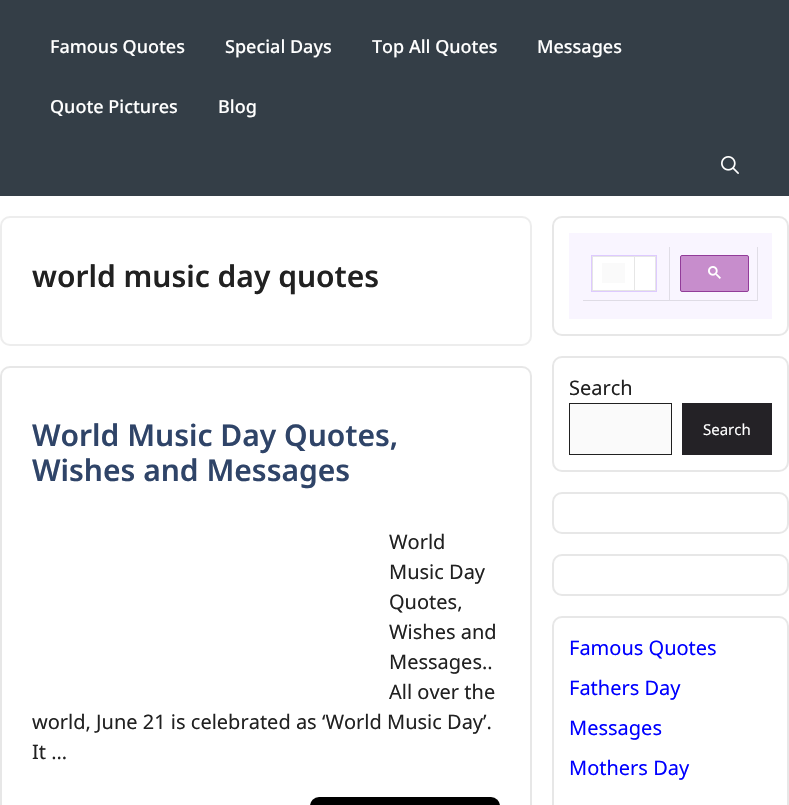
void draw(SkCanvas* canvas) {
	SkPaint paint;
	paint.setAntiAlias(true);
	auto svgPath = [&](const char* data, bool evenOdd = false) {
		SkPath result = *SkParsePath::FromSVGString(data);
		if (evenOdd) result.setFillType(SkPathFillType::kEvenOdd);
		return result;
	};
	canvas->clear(0xffffffff);
	paint.setColor(0xff343e47);
	canvas->drawRect(SkRect::MakeXYWH(0, 0, 789, 196), paint);
	SkFont f1(fontMgr->matchFamilyStyle("Noto Sans", SkFontStyle(500, SkFontStyle::kNormal_Width, SkFontStyle::kUpright_Slant)), 18);
	f1.setSubpixel(true);
	paint.setColor(0xffffffff);
	canvas->drawString("Famous Quotes", 50, 53, f1, paint);
	canvas->drawString("Special Days", 225, 53, f1, paint);
	canvas->drawString("Top All Quotes", 372, 53, f1, paint);
	canvas->drawString("Messages", 537, 53, f1, paint);
	canvas->drawString("Quote Pictures", 50, 113, f1, paint);
	canvas->drawString("Blog", 218, 113, f1, paint);
	canvas->drawImageRect(SkImages::DeferredFromEncodedData(SkData::MakeFromFileName("img1.png")), SkRect::MakeXYWH(721, 156, 18, 18), SkSamplingOptions());
	paint.setStroke(true);
	paint.setStrokeWidth(2);
	paint.setColor(0xffededed);
	canvas->drawRoundRect(SkRect::MakeXYWH(1, 217, 530, 128), 9, 9, paint);
	SkFont f2(fontMgr->matchFamilyStyle("Noto Sans", SkFontStyle(600, SkFontStyle::kNormal_Width, SkFontStyle::kUpright_Slant)), 30);
	f2.setSubpixel(true);
	paint.setStroke(false);
	paint.setColor(0xff212121);
	canvas->drawString("world music day quotes", 32, 287, f2, paint);
	paint.setStroke(true);
	paint.setColor(0xffe7e7e7);
	canvas->drawRoundRect(SkRect::MakeXYWH(1, 367, 530, 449), 9, 9, paint);
	paint.setStroke(false);
	paint.setColor(0xff2f4468);
	canvas->drawString("World Music Day Quotes,", 32, 446, f2, paint);
	canvas->drawString("Wishes and Messages", 32, 481, f2, paint);
	SkFont f3(fontMgr->matchFamilyStyle("Noto Sans", SkFontStyle::Normal()), 20);
	f3.setSubpixel(true);
	paint.setColor(0xff212121);
	canvas->drawString("World", 389, 549, f3, paint);
	canvas->drawString("Music Day", 389, 579, f3, paint);
	canvas->drawString("Quotes,", 389, 609, f3, paint);
	canvas->drawString("Wishes and", 389, 639, f3, paint);
	canvas->drawString("Messages..", 389, 669, f3, paint);
	canvas->drawString("All over the", 389, 699, f3, paint);
	canvas->drawString("world, June 21 is celebrated as ‘World Music Day’.", 32, 729, f3, paint);
	canvas->drawString("It …", 32, 759, f3, paint);
	paint.setColor(0xff000000);
	canvas->drawRoundRect(SkRect::MakeXYWH(310, 797, 190, 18), 10, 10, paint);
	paint.setStroke(true);
	paint.setColor(0xffe7e7e7);
	canvas->drawRoundRect(SkRect::MakeXYWH(553, 217, 235, 118), 9, 9, paint);
	paint.setStroke(false);
	paint.setColor(0xfff9f5ff);
	canvas->drawRect(SkRect::MakeXYWH(569, 233, 203, 86), paint);
	paint.setColor(0xffe0dde6);
	canvas->drawPath(svgPath("M670 247V301L669 300V247Z"), paint);
	paint.setColor(0x1a000000);
	canvas->drawPath(svgPath("M670 301H583V300H669Z"), paint);
	paint.setColor(0xffffffff);
	canvas->drawRect(SkRect::MakeXYWH(591.5, 255.5, 65, 36), paint);
	paint.setStroke(true);
	paint.setStrokeWidth(1);
	paint.setColor(0xffdecaff);
	canvas->drawRect(SkRect::MakeXYWH(591.5, 255.5, 65, 36), paint);
	paint.setStroke(false);
	paint.setColor(0xffe6e6e6);
	canvas->drawPath(svgPath("M592 256H656V257H593Z"), paint);
	paint.setColor(0x1a000000);
	canvas->drawPath(svgPath("M592 291V256L593 257V291Z"), paint);
	paint.setColor(0xffe6e6e6);
	canvas->drawPath(svgPath("M635 257V291L634 290V257Z"), paint);
	paint.setColor(0x1a000000);
	canvas->drawPath(svgPath("M635 291H593V290H634Z"), paint);
	paint.setColor(0xfffafafa);
	canvas->drawRect(SkRect::MakeXYWH(602, 263, 23, 20), paint);
	paint.setColor(0xffe6e6e6);
	canvas->drawPath(svgPath("M656 257V291L655 290V257Z"), paint);
	paint.setColor(0x1a000000);
	canvas->drawPath(svgPath("M656 291H635V290H655Z"), paint);
	paint.setColor(0xffe0dde6);
	canvas->drawPath(svgPath("M758 247V301L757 300V247Z"), paint);
	paint.setColor(0x1a000000);
	canvas->drawPath(svgPath("M758 301H670V300H757Z"), paint);
	paint.setColor(0xffc78dcc);
	canvas->drawRoundRect(SkRect::MakeXYWH(680.5, 255.5, 68, 36), 1.5, 1.5, paint);
	paint.setStroke(true);
	paint.setColor(0xff923c99);
	canvas->drawRoundRect(SkRect::MakeXYWH(680.5, 255.5, 68, 36), 1.5, 1.5, paint);
	canvas->drawImageRect(SkImages::DeferredFromEncodedData(SkData::MakeFromFileName("img2.png")), SkRect::MakeXYWH(708, 266, 13, 13), SkSamplingOptions());
	paint.setStrokeWidth(2);
	paint.setColor(0xffe7e7e7);
	canvas->drawRoundRect(SkRect::MakeXYWH(553, 357, 235, 114), 9, 9, paint);
	paint.setStroke(false);
	paint.setColor(0xff212121);
	canvas->drawString("Search", 569, 395, f3, paint);
	paint.setColor(0xfffafafa);
	canvas->drawRect(SkRect::MakeXYWH(569.5, 403.5, 102, 51), paint);
	paint.setStroke(true);
	paint.setStrokeWidth(1);
	paint.setColor(0xff212121);
	canvas->drawRect(SkRect::MakeXYWH(569.5, 403.5, 102, 51), paint);
	paint.setStroke(false);
	paint.setColor(0xff242226);
	canvas->drawRect(SkRect::MakeXYWH(682, 403, 90, 52), paint);
	SkFont f4(fontMgr->matchFamilyStyle("Noto Sans", SkFontStyle::Normal()), 15);
	f4.setSubpixel(true);
	paint.setColor(0xffffffff);
	canvas->drawString("Search", 703, 435, f4, paint);
	paint.setStroke(true);
	paint.setStrokeWidth(2);
	paint.setColor(0xffe7e7e7);
	canvas->drawRoundRect(SkRect::MakeXYWH(553, 493, 235, 40), 9, 9, paint);
	canvas->drawRoundRect(SkRect::MakeXYWH(553, 555, 235, 40), 9, 9, paint);
	canvas->drawRoundRect(SkRect::MakeXYWH(553, 617, 235, 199), 9, 9, paint);
	paint.setStroke(false);
	paint.setColor(0xff0000ff);
	canvas->drawString("Famous Quotes", 569, 655, f3, paint);
	canvas->drawString("Fathers Day", 569, 695, f3, paint);
	canvas->drawString("Messages", 569, 735, f3, paint);
	canvas->drawString("Mothers Day", 569, 775, f3, paint);
}
